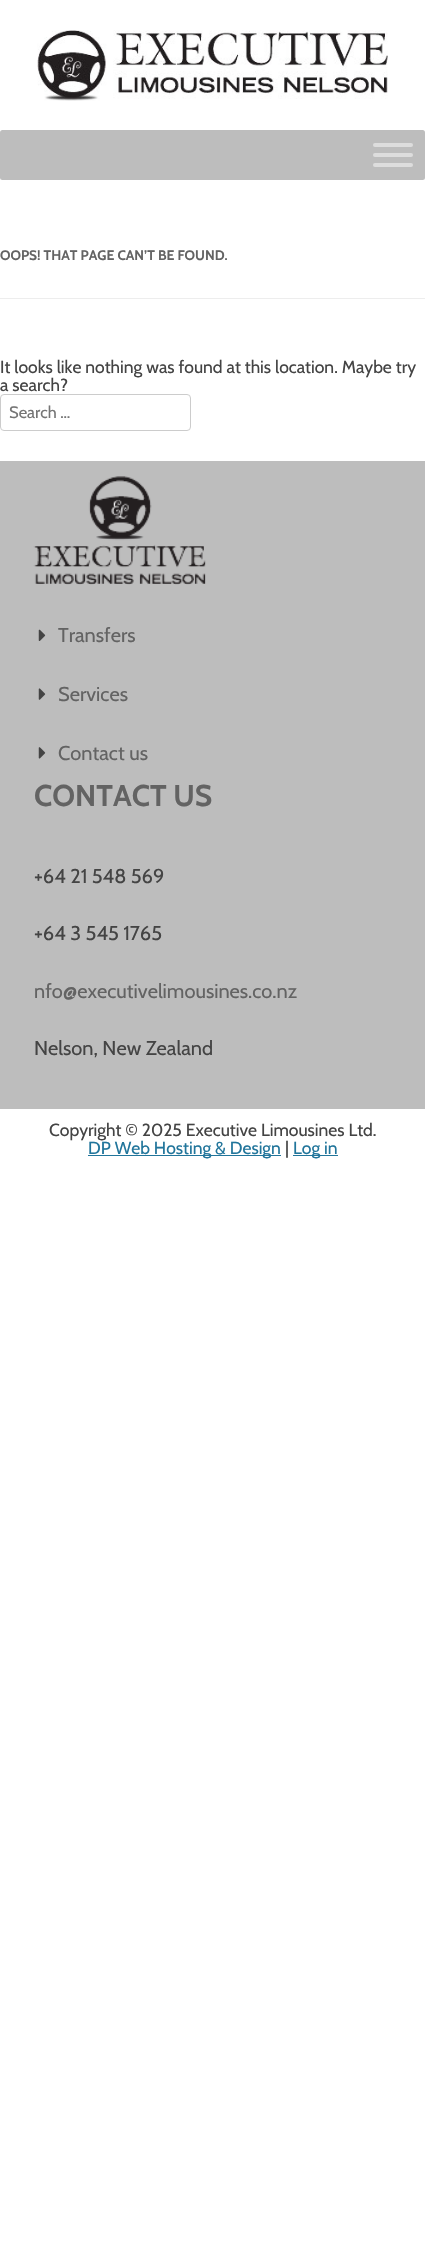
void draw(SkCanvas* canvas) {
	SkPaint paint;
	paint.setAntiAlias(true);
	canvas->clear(0xffffffff);
	canvas->drawImageRect(SkImages::DeferredFromEncodedData(SkData::MakeFromFileName("img1.png")), SkRect::MakeXYWH(37, 30, 351, 71), SkSamplingOptions());
	paint.setColor(0xffbdbdbd);
	canvas->drawRoundRect(SkRect::MakeXYWH(0, 130, 425, 50), 2.5, 2.5, paint);
	paint.setColor(0xffdddddd);
	canvas->drawRoundRect(SkRect::MakeXYWH(373, 143, 40, 4), 2, 2, paint);
	canvas->drawRoundRect(SkRect::MakeXYWH(373, 153, 40, 4), 2, 2, paint);
	canvas->drawRoundRect(SkRect::MakeXYWH(373, 163, 40, 4), 2, 2, paint);
	paint.setColor(0xffededed);
	canvas->drawRect(SkRect::MakeXYWH(0, 298, 425, 1), paint);
	SkFont f1(fontMgr->matchFamilyStyle("Cabin", SkFontStyle::Bold()), 13.75);
	f1.setSubpixel(true);
	paint.setColor(0xff636363);
	canvas->drawString("OOPS! THAT PAGE CAN’T BE FOUND.", 0, 260, f1, paint);
	SkFont f2(fontMgr->matchFamilyStyle("Cabin", SkFontStyle::Normal()), 17.5);
	f2.setSubpixel(true);
	paint.setColor(0xff444444);
	canvas->drawString("It looks like nothing was found at this location. Maybe try", 0, 373, f2, paint);
	canvas->drawString("a search?", 0, 391, f2, paint);
	paint.setStroke(true);
	paint.setStrokeWidth(1);
	paint.setColor(0xffcccccc);
	canvas->drawRoundRect(SkRect::MakeXYWH(0.5, 394.5, 190, 36), 3.5, 3.5, paint);
	SkFont f3(fontMgr->matchFamilyStyle("Cabin", SkFontStyle::Normal()), 16.5);
	f3.setSubpixel(true);
	paint.setStroke(false);
	paint.setColor(0xff757575);
	canvas->drawString("Search …", 9, 418, f3, paint);
	paint.setColor(0xffbdbdbd);
	canvas->drawRect(SkRect::MakeXYWH(0, 461, 425, 648), paint);
	canvas->drawImageRect(SkImages::DeferredFromEncodedData(SkData::MakeFromFileName("img2.png")), SkRect::MakeXYWH(33, 476, 173, 109), SkSamplingOptions());
	canvas->drawImageRect(SkImages::DeferredFromEncodedData(SkData::MakeFromFileName("img3.png")), SkRect::MakeXYWH(38, 629, 8, 12), SkSamplingOptions());
	SkFont f4(fontMgr->matchFamilyStyle("Cabin", SkFontStyle::Normal()), 20);
	f4.setSubpixel(true);
	paint.setColor(0xff636363);
	canvas->drawString("Transfers", 58, 642, f4, paint);
	canvas->drawImageRect(SkImages::DeferredFromEncodedData(SkData::MakeFromFileName("img4.png")), SkRect::MakeXYWH(38, 688, 8, 12), SkSamplingOptions());
	canvas->drawString("Services", 58, 701, f4, paint);
	canvas->drawImageRect(SkImages::DeferredFromEncodedData(SkData::MakeFromFileName("img5.png")), SkRect::MakeXYWH(38, 747, 8, 12), SkSamplingOptions());
	canvas->drawString("Contact us", 58, 760, f4, paint);
	SkFont f5(fontMgr->matchFamilyStyle("Cabin", SkFontStyle::Bold()), 30);
	f5.setSubpixel(true);
	canvas->drawString("CONTACT US", 34, 806, f5, paint);
	paint.setColor(0xff444444);
	canvas->drawString("+64 21 548 569", 34, 883, f4, paint);
	canvas->drawString("+64 3 545 1765", 34, 940, f4, paint);
	paint.setColor(0xff636363);
	canvas->drawString("nfo@executivelimousines.co.nz", 34, 998, f4, paint);
	paint.setColor(0xff444444);
	canvas->drawString("Nelson, New Zealand", 34, 1055, f4, paint);
	canvas->drawString("Copyright © 2025 Executive Limousines Ltd.", 49, 1136, f2, paint);
	paint.setColor(0xff21759b);
	canvas->drawRect(SkRect::MakeXYWH(88, 1155, 193, 1), paint);
	canvas->drawString("DP Web Hosting & Design", 88, 1154, f2, paint);
	paint.setColor(0xff444444);
	canvas->drawString("|", 285, 1154, f2, paint);
	paint.setColor(0xff21759b);
	canvas->drawRect(SkRect::MakeXYWH(293, 1155, 45, 1), paint);
	canvas->drawString("Log in", 293, 1154, f2, paint);
}
